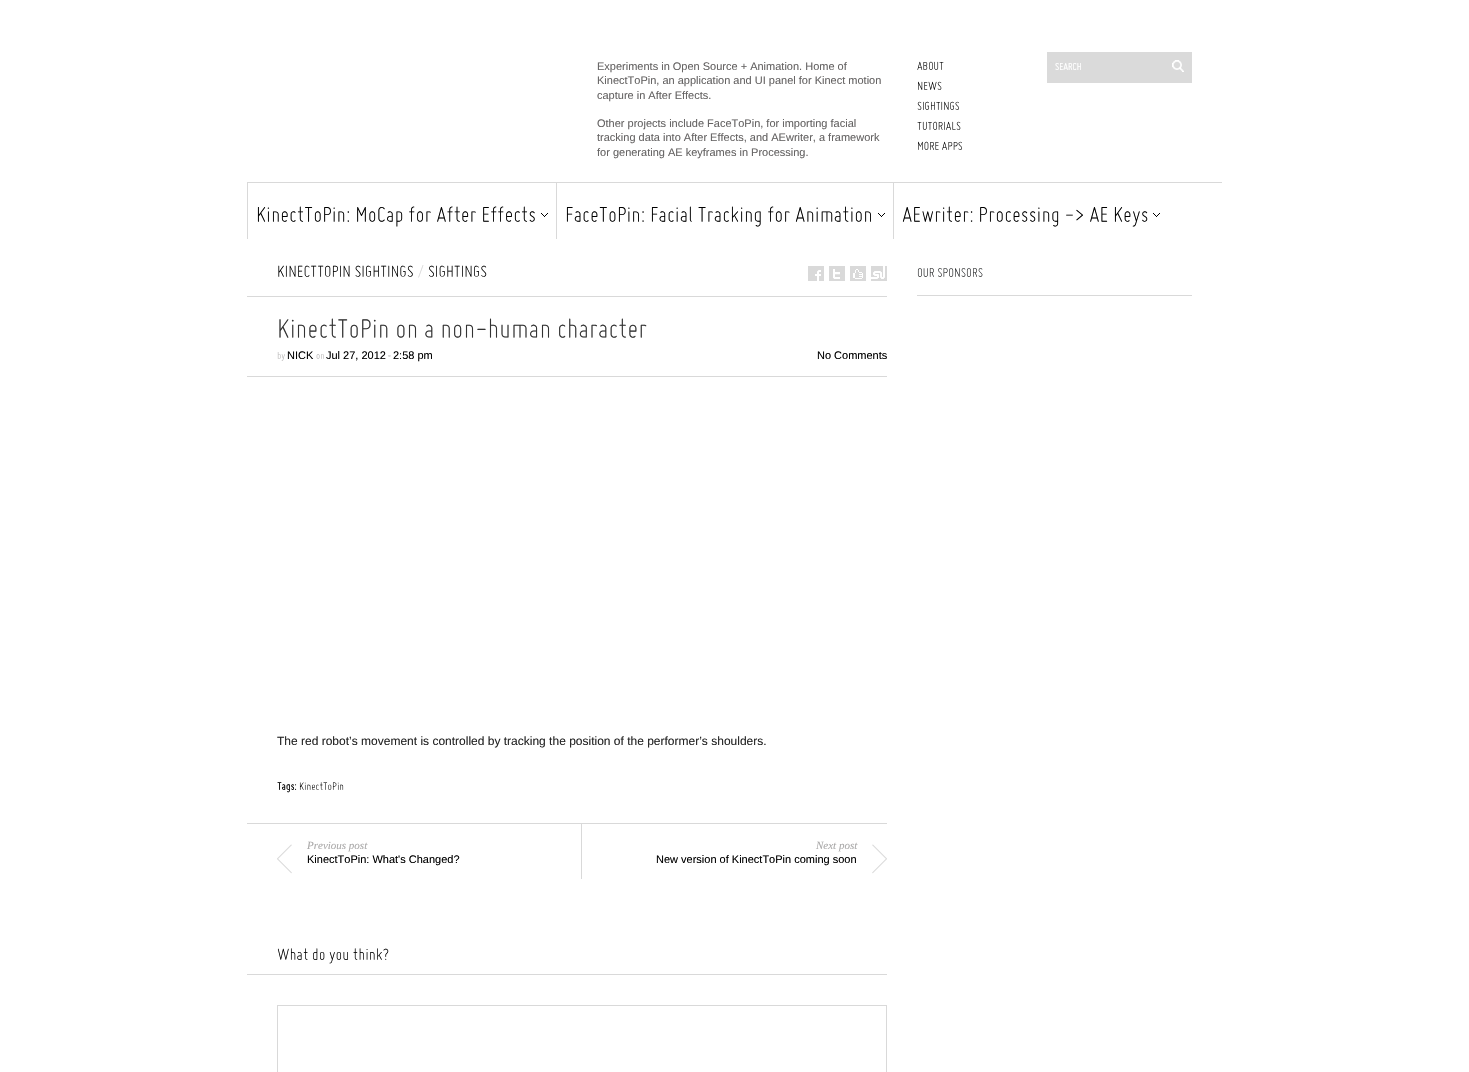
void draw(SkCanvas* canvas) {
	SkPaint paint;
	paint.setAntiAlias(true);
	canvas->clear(0xffffffff);
	SkFont f1(fontMgr->matchFamilyStyle("Liberation Sans", SkFontStyle::Normal()), 11);
	f1.setSubpixel(true);
	paint.setColor(0xff656363);
	canvas->drawString("Experiments in Open Source + Animation. Home of", 597, 70, f1, paint);
	canvas->drawString("KinectToPin, an application and UI panel for Kinect motion", 597, 84, f1, paint);
	canvas->drawString("capture in After Effects.", 597, 99, f1, paint);
	canvas->drawString("Other projects include FaceToPin, for importing facial", 597, 127, f1, paint);
	canvas->drawString("tracking data into After Effects, and AEwriter, a framework", 597, 141, f1, paint);
	canvas->drawString("for generating AE keyframes in Processing.", 597, 156, f1, paint);
	SkFont f2(fontMgr->matchFamilyStyle("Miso", SkFontStyle(300, SkFontStyle::kNormal_Width, SkFontStyle::kItalic_Slant)), 13);
	f2.setSubpixel(true);
	paint.setColor(0xff000000);
	canvas->drawString("ABOUT", 917, 70, f2, paint);
	canvas->drawString("NEWS", 917, 90, f2, paint);
	canvas->drawString("SIGHTINGS", 917, 110, f2, paint);
	canvas->drawString("TUTORIALS", 917, 130, f2, paint);
	canvas->drawString("MORE APPS", 917, 150, f2, paint);
	paint.setColor(0xffdadada);
	canvas->drawRect(SkRect::MakeXYWH(1047, 52, 145, 31), paint);
	SkFont f3(fontMgr->matchFamilyStyle("Miso", SkFontStyle::Italic()), 11);
	f3.setSubpixel(true);
	paint.setColor(0xffffffff);
	canvas->drawString("SEARCH", 1055, 70, f3, paint);
	canvas->drawImageRect(SkImages::DeferredFromEncodedData(SkData::MakeFromFileName("img1.png")), SkRect::MakeXYWH(1172, 60, 12, 12), SkSamplingOptions());
	paint.setColor(0xffd9d9d9);
	canvas->drawRect(SkRect::MakeXYWH(247, 182, 975, 1), paint);
	canvas->drawRect(SkRect::MakeXYWH(247, 183, 1, 56), paint);
	canvas->drawImageRect(SkImages::DeferredFromEncodedData(SkData::MakeFromFileName("img2.png")), SkRect::MakeXYWH(541, 213, 7, 4), SkSamplingOptions());
	SkFont f4(fontMgr->matchFamilyStyle("Miso", SkFontStyle(300, SkFontStyle::kNormal_Width, SkFontStyle::kItalic_Slant)), 24);
	f4.setSubpixel(true);
	paint.setColor(0xff000000);
	canvas->drawString("KinectToPin: MoCap for After Effects", 256, 222, f4, paint);
	paint.setColor(0xffd9d9d9);
	canvas->drawRect(SkRect::MakeXYWH(556, 183, 1, 56), paint);
	canvas->drawImageRect(SkImages::DeferredFromEncodedData(SkData::MakeFromFileName("img2.png")), SkRect::MakeXYWH(878, 213, 7, 4), SkSamplingOptions());
	paint.setColor(0xff000000);
	canvas->drawString("FaceToPin: Facial Tracking for Animation", 565, 222, f4, paint);
	paint.setColor(0xffd9d9d9);
	canvas->drawRect(SkRect::MakeXYWH(893, 183, 1, 56), paint);
	canvas->drawImageRect(SkImages::DeferredFromEncodedData(SkData::MakeFromFileName("img2.png")), SkRect::MakeXYWH(1153, 213, 7, 4), SkSamplingOptions());
	paint.setColor(0xff000000);
	canvas->drawString("AEwriter: Processing -> AE Keys", 902, 222, f4, paint);
	paint.setColor(0xffd9d9d9);
	canvas->drawRect(SkRect::MakeXYWH(247, 296, 640, 1), paint);
	SkFont f5(fontMgr->matchFamilyStyle("Miso", SkFontStyle(300, SkFontStyle::kNormal_Width, SkFontStyle::kItalic_Slant)), 18);
	f5.setSubpixel(true);
	paint.setColor(0xff000000);
	canvas->drawString("KINECTTOPIN SIGHTINGS", 277, 277, f5, paint);
	paint.setColor(0xffd9d9d9);
	canvas->drawString("/", 417, 277, f5, paint);
	paint.setColor(0xff000000);
	canvas->drawString("SIGHTINGS", 428, 277, f5, paint);
	canvas->drawImageRect(SkImages::DeferredFromEncodedData(SkData::MakeFromFileName("img3.png")), SkRect::MakeXYWH(808, 266, 16, 15), SkSamplingOptions());
	canvas->drawImageRect(SkImages::DeferredFromEncodedData(SkData::MakeFromFileName("img4.png")), SkRect::MakeXYWH(829, 266, 16, 15), SkSamplingOptions());
	canvas->drawImageRect(SkImages::DeferredFromEncodedData(SkData::MakeFromFileName("img5.png")), SkRect::MakeXYWH(850, 266, 16, 15), SkSamplingOptions());
	canvas->drawImageRect(SkImages::DeferredFromEncodedData(SkData::MakeFromFileName("img6.png")), SkRect::MakeXYWH(871, 266, 16, 15), SkSamplingOptions());
	paint.setColor(0xffd9d9d9);
	canvas->drawRect(SkRect::MakeXYWH(247, 823, 640, 1), paint);
	canvas->drawRect(SkRect::MakeXYWH(247, 376, 640, 1), paint);
	SkFont f6(fontMgr->matchFamilyStyle("Miso", SkFontStyle(300, SkFontStyle::kNormal_Width, SkFontStyle::kItalic_Slant)), 30);
	f6.setSubpixel(true);
	paint.setColor(0xff333333);
	canvas->drawString("KinectToPin on a non-human character", 277, 338, f6, paint);
	SkFont f7(fontMgr->matchFamilyStyle("Miso", SkFontStyle(300, SkFontStyle::kNormal_Width, SkFontStyle::kItalic_Slant)), 11);
	f7.setSubpixel(true);
	paint.setColor(0xffaaa9a9);
	canvas->drawString("by", 277, 359, f7, paint);
	paint.setColor(0xff000000);
	canvas->drawString("NICK", 287, 359, f1, paint);
	paint.setColor(0xffaaa9a9);
	canvas->drawString("on", 316, 359, f7, paint);
	paint.setColor(0xff000000);
	canvas->drawString("Jul 27, 2012", 326, 359, f1, paint);
	paint.setColor(0xffaaa9a9);
	canvas->drawString("•", 388, 359, f7, paint);
	paint.setColor(0xff000000);
	canvas->drawString("2:58 pm", 393, 359, f1, paint);
	canvas->drawString("No Comments", 817, 359, f1, paint);
	SkFont f8(fontMgr->matchFamilyStyle("Liberation Sans", SkFontStyle::Normal()), 12);
	f8.setSubpixel(true);
	paint.setColor(0xff262626);
	canvas->drawString("The red robot’s movement is controlled by tracking the position of the performer’s shoulders.", 277, 745, f8, paint);
	SkFont f9(fontMgr->matchFamilyStyle("Miso", SkFontStyle::BoldItalic()), 12);
	f9.setSubpixel(true);
	paint.setColor(0xff000000);
	canvas->drawString("Tags:", 277, 790, f9, paint);
	SkFont f10(fontMgr->matchFamilyStyle("Miso", SkFontStyle(300, SkFontStyle::kNormal_Width, SkFontStyle::kItalic_Slant)), 12);
	f10.setSubpixel(true);
	canvas->drawString("KinectToPin", 299, 790, f10, paint);
	canvas->drawImageRect(SkImages::DeferredFromEncodedData(SkData::MakeFromFileName("img7.png")), SkRect::MakeXYWH(277, 844, 15, 30), SkSamplingOptions());
	SkFont f11(fontMgr->matchFamilyStyle("Liberation Serif", SkFontStyle::Italic()), 11);
	f11.setSubpixel(true);
	paint.setColor(0xffaaa9a9);
	canvas->drawString("Previous post", 307, 849, f11, paint);
	paint.setColor(0xff000000);
	canvas->drawString("KinectToPin: What's Changed?", 307, 863, f1, paint);
	paint.setColor(0xffd9d9d9);
	canvas->drawRect(SkRect::MakeXYWH(581, 824, 1, 55), paint);
	canvas->drawImageRect(SkImages::DeferredFromEncodedData(SkData::MakeFromFileName("img8.png")), SkRect::MakeXYWH(872, 844, 15, 30), SkSamplingOptions());
	paint.setColor(0xffaaa9a9);
	canvas->drawString("Next post", 816, 849, f11, paint);
	paint.setColor(0xff000000);
	canvas->drawString("New version of KinectToPin coming soon", 656, 863, f1, paint);
	paint.setColor(0xffd9d9d9);
	canvas->drawRect(SkRect::MakeXYWH(247, 974, 640, 1), paint);
	paint.setColor(0xff000000);
	canvas->drawString("What do you think?", 277, 960, f5, paint);
	paint.setStroke(true);
	paint.setStrokeWidth(1);
	paint.setColor(0xffd9d9d9);
	canvas->drawRect(SkRect::MakeXYWH(277.5, 1005.5, 609, 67), paint);
	paint.setStroke(false);
	canvas->drawRect(SkRect::MakeXYWH(917, 295, 275, 1), paint);
	SkFont f12(fontMgr->matchFamilyStyle("Miso", SkFontStyle(300, SkFontStyle::kNormal_Width, SkFontStyle::kItalic_Slant)), 14);
	f12.setSubpixel(true);
	paint.setColor(0xff1f2122);
	canvas->drawString("OUR SPONSORS", 917, 277, f12, paint);
}
